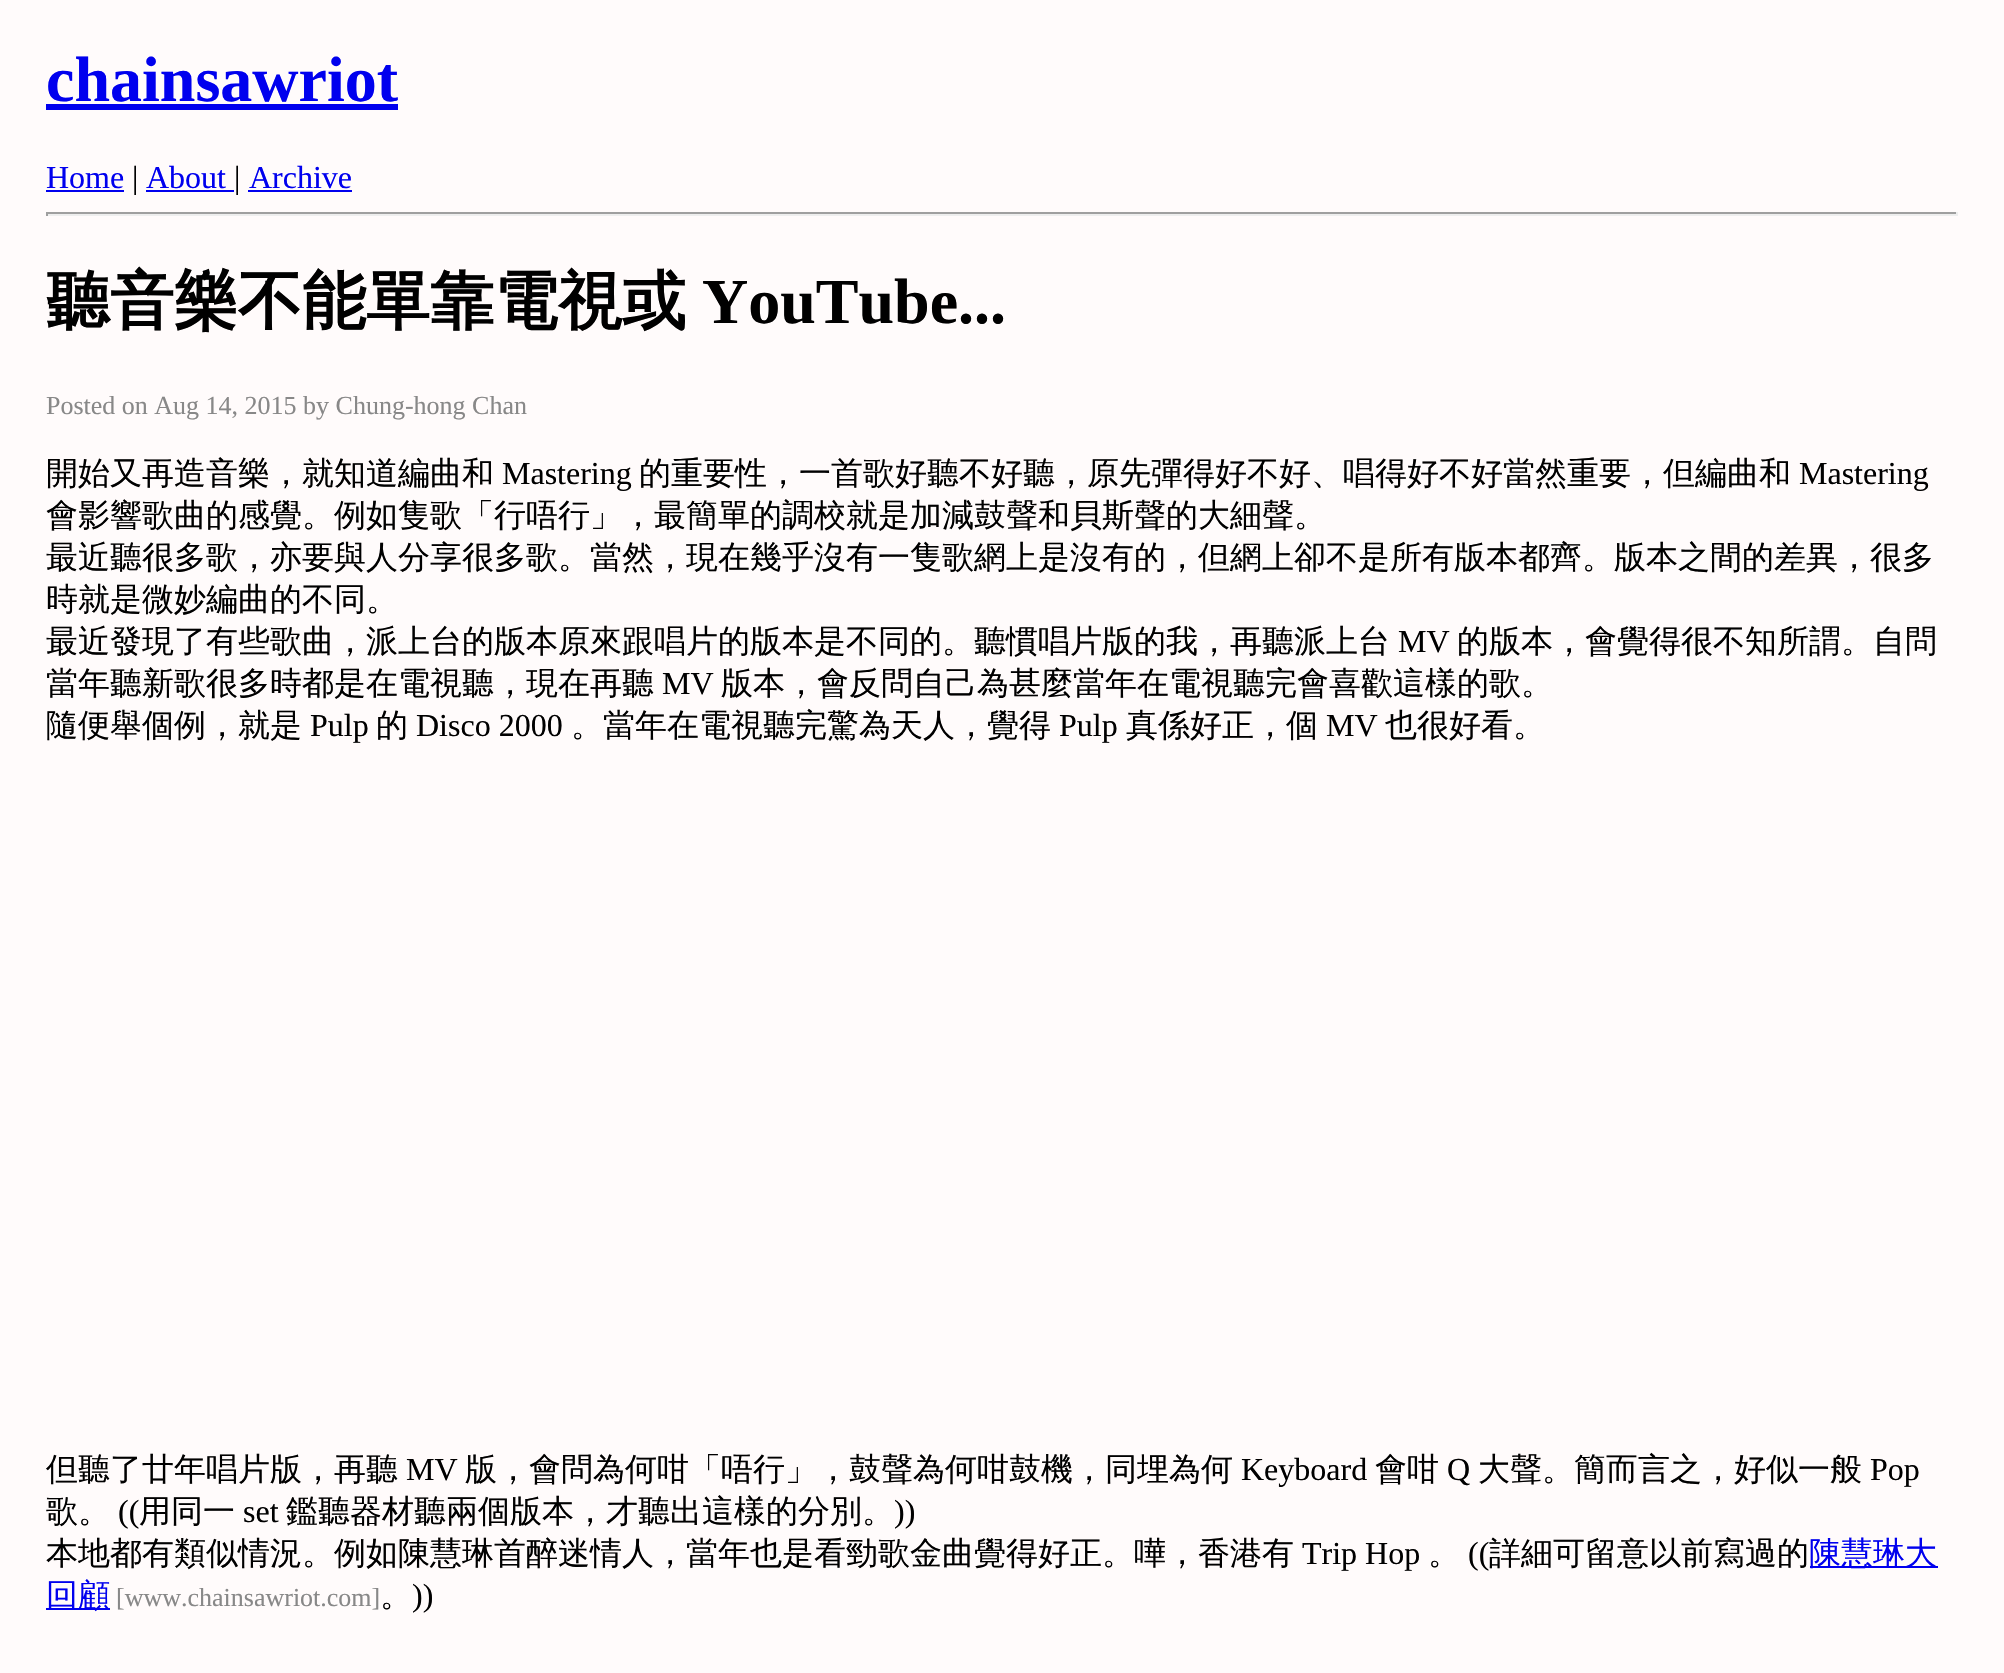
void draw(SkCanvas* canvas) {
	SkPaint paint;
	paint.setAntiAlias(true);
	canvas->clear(0xfffffbfb);
	SkFont f1(fontMgr->matchFamilyStyle("Liberation Serif", SkFontStyle::Bold()), 64);
	f1.setSubpixel(true);
	paint.setColor(0xff0000ee);
	canvas->drawString("chainsawriot", 46, 101, f1, paint);
	canvas->drawRect(SkRect::MakeXYWH(46, 104, 352, 6), paint);
	SkFont f2(fontMgr->matchFamilyStyle("Liberation Serif", SkFontStyle::Normal()), 32);
	f2.setSubpixel(true);
	canvas->drawString("Home", 46, 188, f2, paint);
	canvas->drawRect(SkRect::MakeXYWH(46, 190, 78, 2), paint);
	paint.setColor(0xff000000);
	canvas->drawString("|", 132, 188, f2, paint);
	paint.setColor(0xff0000ee);
	canvas->drawString("About", 146, 188, f2, paint);
	canvas->drawRect(SkRect::MakeXYWH(146, 190, 88, 2), paint);
	paint.setColor(0xff000000);
	canvas->drawString("|", 234, 188, f2, paint);
	paint.setColor(0xff0000ee);
	canvas->drawString("Archive", 249, 188, f2, paint);
	canvas->drawRect(SkRect::MakeXYWH(248, 190, 104, 2), paint);
	paint.setColor(0xff9f9f9f);
	canvas->drawRect(SkRect::MakeXYWH(46, 212, 1912, 2), paint);
	paint.setColor(0xffeeeeee);
	canvas->drawRect(SkRect::MakeXYWH(1956, 212, 2, 4), paint);
	canvas->drawRect(SkRect::MakeXYWH(46, 214, 1912, 2), paint);
	paint.setColor(0xff9f9f9f);
	canvas->drawRect(SkRect::MakeXYWH(46, 212, 2, 4), paint);
	SkFont f3(fontMgr->matchFamilyStyle("WenQuanYi Zen Hei", SkFontStyle::Bold()), 64);
	f3.setSubpixel(true);
	paint.setColor(0xff000000);
	canvas->drawString("聽音樂不能單靠電視或", 46, 323, f3, paint);
	canvas->drawString("YouTube...", 702, 323, f1, paint);
	SkFont f4(fontMgr->matchFamilyStyle("Liberation Serif", SkFontStyle::Normal()), 26);
	f4.setSubpixel(true);
	paint.setColor(0xff888888);
	canvas->drawString("Posted on Aug 14, 2015 by Chung-hong Chan", 46, 414, f4, paint);
	SkFont f5(fontMgr->matchFamilyStyle("WenQuanYi Zen Hei", SkFontStyle(500, SkFontStyle::kNormal_Width, SkFontStyle::kUpright_Slant)), 32);
	f5.setSubpixel(true);
	paint.setColor(0xff000000);
	canvas->drawString("開始又再造音樂，就知道編曲和", 46, 484, f5, paint);
	canvas->drawString("Mastering", 502, 484, f2, paint);
	canvas->drawString("的重要性，一首歌好聽不好聽，原先彈得好不好、唱得好不好當然重要，但編曲和", 639, 484, f5, paint);
	canvas->drawString("Mastering", 1799, 484, f2, paint);
	canvas->drawString("會影響歌曲的感覺。例如隻歌「行唔行」，最簡單的調校就是加減鼓聲和貝斯聲的大細聲。", 46, 526, f5, paint);
	canvas->drawString("最近聽很多歌，亦要與人分享很多歌。當然，現在幾乎沒有一隻歌網上是沒有的，但網上卻不是所有版本都齊。版本之間的差異，很多", 46, 568, f5, paint);
	canvas->drawString("時就是微妙編曲的不同。", 46, 610, f5, paint);
	canvas->drawString("最近發現了有些歌曲，派上台的版本原來跟唱片的版本是不同的。聽慣唱片版的我，再聽派上台", 46, 652, f5, paint);
	canvas->drawString("MV", 1398, 652, f2, paint);
	canvas->drawString("的版本，會覺得很不知所謂。自問", 1457, 652, f5, paint);
	canvas->drawString("當年聽新歌很多時都是在電視聽，現在再聽", 46, 694, f5, paint);
	canvas->drawString("MV", 662, 694, f2, paint);
	canvas->drawString("版本，會反問自己為甚麼當年在電視聽完會喜歡這樣的歌。", 721, 694, f5, paint);
	canvas->drawString("隨便舉個例，就是", 46, 736, f5, paint);
	canvas->drawString("Pulp", 310, 736, f2, paint);
	canvas->drawString("的", 376, 736, f5, paint);
	canvas->drawString("Disco 2000", 416, 736, f2, paint);
	canvas->drawString("。當年在電視聽完驚為天人，覺得", 571, 736, f5, paint);
	canvas->drawString("Pulp", 1059, 736, f2, paint);
	canvas->drawString("真係好正，個", 1126, 736, f5, paint);
	canvas->drawString("MV", 1326, 736, f2, paint);
	canvas->drawString("也很好看。", 1385, 736, f5, paint);
	canvas->drawString("但聽了廿年唱片版，再聽", 46, 1480, f5, paint);
	canvas->drawString("MV", 406, 1480, f2, paint);
	canvas->drawString("版，會問為何咁「唔行」，鼓聲為何咁鼓機，同埋為何", 465, 1480, f5, paint);
	canvas->drawString("Keyboard", 1241, 1480, f2, paint);
	canvas->drawString("會咁", 1375, 1480, f5, paint);
	canvas->drawString("Q", 1447, 1480, f2, paint);
	canvas->drawString("大聲。簡而言之，好似一般", 1478, 1480, f5, paint);
	canvas->drawString("Pop", 1870, 1480, f2, paint);
	canvas->drawString("歌。", 46, 1522, f5, paint);
	canvas->drawString("((", 118, 1522, f2, paint);
	canvas->drawString("用同一", 139, 1522, f5, paint);
	canvas->drawString("set", 243, 1522, f2, paint);
	canvas->drawString("鑑聽器材聽兩個版本，才聽出這樣的分別。", 286, 1522, f5, paint);
	canvas->drawString("))", 894, 1522, f2, paint);
	canvas->drawString("本地都有類似情況。例如陳慧琳首醉迷情人，當年也是看勁歌金曲覺得好正。嘩，香港有", 46, 1564, f5, paint);
	canvas->drawString("Trip Hop", 1302, 1564, f2, paint);
	canvas->drawString("。", 1428, 1564, f5, paint);
	canvas->drawString("((", 1468, 1564, f2, paint);
	canvas->drawString("詳細可留意以前寫過的", 1489, 1564, f5, paint);
	paint.setColor(0xff0000ee);
	canvas->drawRect(SkRect::MakeXYWH(1810, 1566, 128, 2), paint);
	canvas->drawString("陳慧琳大", 1809, 1564, f5, paint);
	canvas->drawRect(SkRect::MakeXYWH(46, 1608, 64, 2), paint);
	canvas->drawString("回顧", 46, 1606, f5, paint);
	paint.setColor(0xff888888);
	canvas->drawString("[www.chainsawriot.com]", 116, 1606, f4, paint);
	paint.setColor(0xff000000);
	canvas->drawString("。", 380, 1606, f5, paint);
	canvas->drawString("))", 412, 1606, f2, paint);
}
